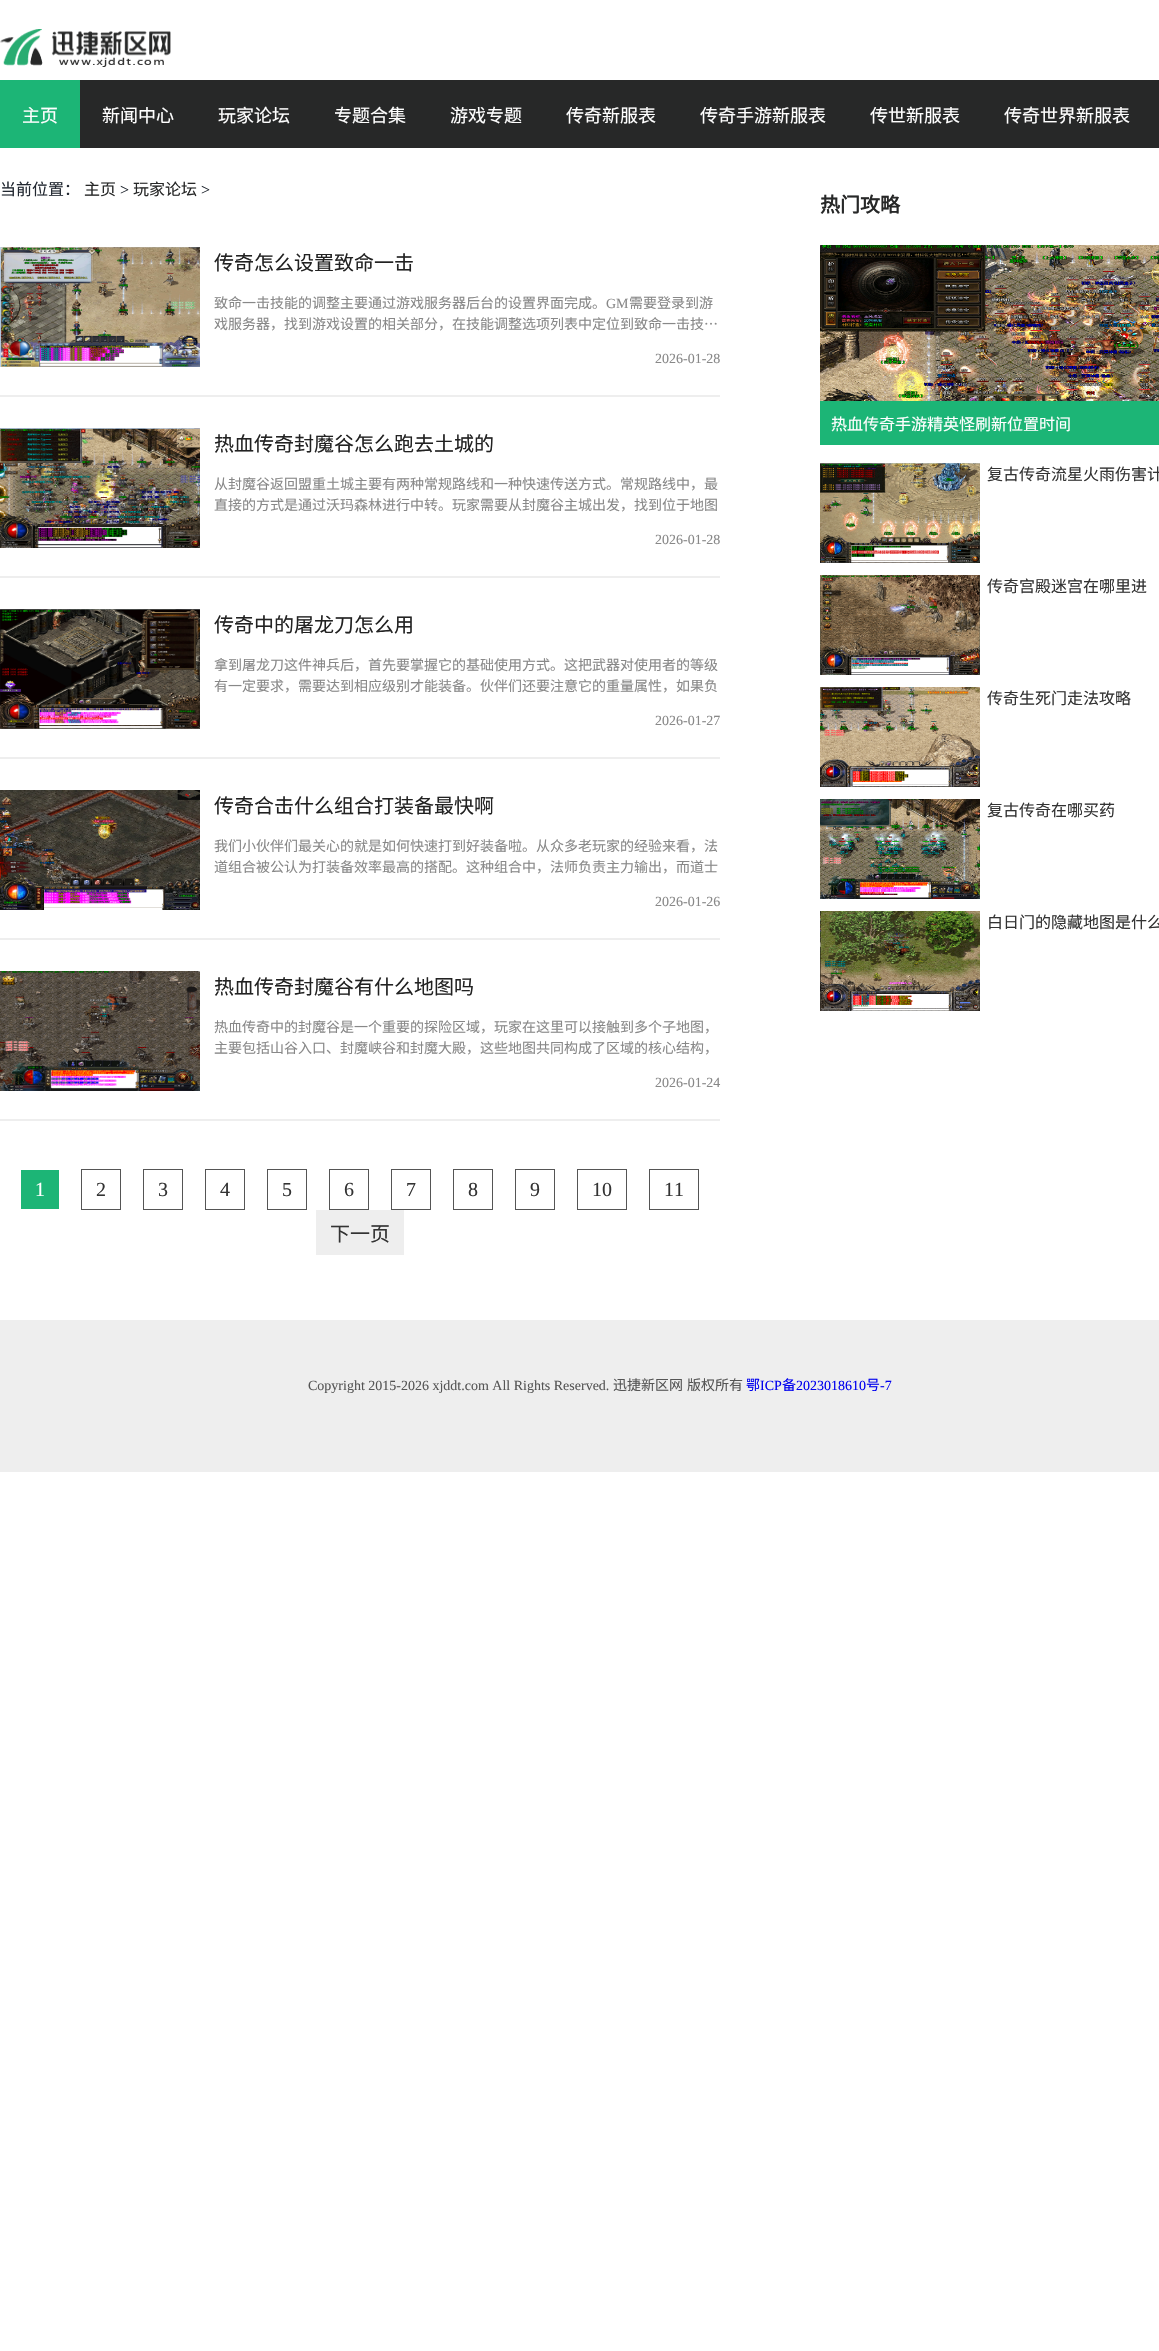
void draw(SkCanvas* canvas) {
	SkPaint paint;
	paint.setAntiAlias(true);
	canvas->clear(0xffffffff);
	canvas->drawImageRect(SkImages::DeferredFromEncodedData(SkData::MakeFromFileName("img1.png")), SkRect::MakeXYWH(0, 29, 171, 38), SkSamplingOptions());
	paint.setColor(0xff272828);
	canvas->drawRect(SkRect::MakeXYWH(80, 80, 1079, 68), paint);
	paint.setColor(0xff1cb576);
	canvas->drawRect(SkRect::MakeXYWH(0, 80, 80, 68), paint);
	SkFont f1(fontMgr->matchFamilyStyle("Noto Sans CJK SC", SkFontStyle::Normal()), 18);
	f1.setSubpixel(true);
	paint.setColor(0xffffffff);
	canvas->drawString("主页", 22, 122, f1, paint);
	canvas->drawString("新闻中心", 102, 122, f1, paint);
	canvas->drawString("玩家论坛", 218, 122, f1, paint);
	canvas->drawString("专题合集", 334, 122, f1, paint);
	canvas->drawString("游戏专题", 450, 122, f1, paint);
	canvas->drawString("传奇新服表", 566, 122, f1, paint);
	canvas->drawString("传奇手游新服表", 700, 122, f1, paint);
	canvas->drawString("传世新服表", 870, 122, f1, paint);
	canvas->drawString("传奇世界新服表", 1004, 122, f1, paint);
	SkFont f2(fontMgr->matchFamilyStyle("Noto Sans CJK SC", SkFontStyle::Normal()), 16);
	f2.setSubpixel(true);
	paint.setColor(0xff222831);
	canvas->drawString("当前位置：", 0, 195, f2, paint);
	paint.setColor(0xff272828);
	canvas->drawString("主页", 84, 195, f2, paint);
	SkFont f3(fontMgr->matchFamilyStyle("Liberation Serif", SkFontStyle::Normal()), 16);
	f3.setSubpixel(true);
	paint.setColor(0xff222831);
	canvas->drawString(">", 120, 195, f3, paint);
	paint.setColor(0xff272828);
	canvas->drawString("玩家论坛", 133, 195, f2, paint);
	paint.setColor(0xff222831);
	canvas->drawString(">", 201, 195, f3, paint);
	paint.setColor(0xffeeeeee);
	canvas->drawRect(SkRect::MakeXYWH(0, 395, 720, 2), paint);
	canvas->drawImageRect(SkImages::DeferredFromEncodedData(SkData::MakeFromFileName("img2.png")), SkRect::MakeXYWH(0, 247, 200, 120), SkSamplingOptions());
	SkFont f4(fontMgr->matchFamilyStyle("Noto Sans CJK SC", SkFontStyle::Normal()), 20);
	f4.setSubpixel(true);
	paint.setColor(0xff222222);
	canvas->drawString("传奇怎么设置致命一击", 214, 270, f4, paint);
	SkFont f5(fontMgr->matchFamilyStyle("Noto Sans CJK SC", SkFontStyle::Normal()), 14);
	f5.setSubpixel(true);
	paint.setColor(0xff888888);
	canvas->drawString("致命一击技能的调整主要通过游戏服务器后台的设置界面完成。", 214, 308, f5, paint);
	SkFont f6(fontMgr->matchFamilyStyle("Liberation Serif", SkFontStyle::Normal()), 14);
	f6.setSubpixel(true);
	canvas->drawString("GM", 606, 308, f6, paint);
	canvas->drawString("需要登录到游", 629, 308, f5, paint);
	canvas->drawString("戏服务器，找到游戏设置的相关部分，在技能调整选项列表中定位到致命一击技…", 214, 329, f5, paint);
	canvas->drawString("2026-01-28", 655, 363, f6, paint);
	paint.setColor(0xffeeeeee);
	canvas->drawRect(SkRect::MakeXYWH(0, 576, 720, 2), paint);
	canvas->drawImageRect(SkImages::DeferredFromEncodedData(SkData::MakeFromFileName("img3.png")), SkRect::MakeXYWH(0, 428, 200, 120), SkSamplingOptions());
	paint.setColor(0xff222222);
	canvas->drawString("热血传奇封魔谷怎么跑去土城的", 214, 451, f4, paint);
	paint.setColor(0xff888888);
	canvas->drawString("从封魔谷返回盟重土城主要有两种常规路线和一种快速传送方式。常规路线中，最", 214, 489, f5, paint);
	canvas->drawString("直接的方式是通过沃玛森林进行中转。玩家需要从封魔谷主城出发，找到位于地图", 214, 510, f5, paint);
	canvas->drawString("2026-01-28", 655, 544, f6, paint);
	paint.setColor(0xffeeeeee);
	canvas->drawRect(SkRect::MakeXYWH(0, 757, 720, 2), paint);
	canvas->drawImageRect(SkImages::DeferredFromEncodedData(SkData::MakeFromFileName("img4.png")), SkRect::MakeXYWH(0, 609, 200, 120), SkSamplingOptions());
	paint.setColor(0xff222222);
	canvas->drawString("传奇中的屠龙刀怎么用", 214, 632, f4, paint);
	paint.setColor(0xff888888);
	canvas->drawString("拿到屠龙刀这件神兵后，首先要掌握它的基础使用方式。这把武器对使用者的等级", 214, 670, f5, paint);
	canvas->drawString("有一定要求，需要达到相应级别才能装备。伙伴们还要注意它的重量属性，如果负", 214, 691, f5, paint);
	canvas->drawString("2026-01-27", 655, 725, f6, paint);
	paint.setColor(0xffeeeeee);
	canvas->drawRect(SkRect::MakeXYWH(0, 938, 720, 2), paint);
	canvas->drawImageRect(SkImages::DeferredFromEncodedData(SkData::MakeFromFileName("img5.png")), SkRect::MakeXYWH(0, 790, 200, 120), SkSamplingOptions());
	paint.setColor(0xff222222);
	canvas->drawString("传奇合击什么组合打装备最快啊", 214, 813, f4, paint);
	paint.setColor(0xff888888);
	canvas->drawString("我们小伙伴们最关心的就是如何快速打到好装备啦。从众多老玩家的经验来看，法", 214, 851, f5, paint);
	canvas->drawString("道组合被公认为打装备效率最高的搭配。这种组合中，法师负责主力输出，而道士", 214, 872, f5, paint);
	canvas->drawString("2026-01-26", 655, 906, f6, paint);
	paint.setColor(0xffeeeeee);
	canvas->drawRect(SkRect::MakeXYWH(0, 1119, 720, 2), paint);
	canvas->drawImageRect(SkImages::DeferredFromEncodedData(SkData::MakeFromFileName("img6.png")), SkRect::MakeXYWH(0, 971, 200, 120), SkSamplingOptions());
	paint.setColor(0xff222222);
	canvas->drawString("热血传奇封魔谷有什么地图吗", 214, 994, f4, paint);
	paint.setColor(0xff888888);
	canvas->drawString("热血传奇中的封魔谷是一个重要的探险区域，玩家在这里可以接触到多个子地图，", 214, 1032, f5, paint);
	canvas->drawString("主要包括山谷入口、封魔峡谷和封魔大殿，这些地图共同构成了区域的核心结构，", 214, 1053, f5, paint);
	canvas->drawString("2026-01-24", 655, 1087, f6, paint);
	paint.setColor(0xff1cb576);
	canvas->drawRect(SkRect::MakeXYWH(21, 1170, 38, 39), paint);
	SkFont f7(fontMgr->matchFamilyStyle("Liberation Serif", SkFontStyle::Normal()), 20);
	f7.setSubpixel(true);
	paint.setColor(0xffffffff);
	canvas->drawString("1", 35, 1196, f7, paint);
	paint.setStroke(true);
	paint.setStrokeWidth(1);
	paint.setColor(0xff555555);
	canvas->drawRect(SkRect::MakeXYWH(81.5, 1169.5, 39, 40), paint);
	paint.setStroke(false);
	paint.setColor(0xff333333);
	canvas->drawString("2", 96, 1196, f7, paint);
	paint.setStroke(true);
	paint.setColor(0xff555555);
	canvas->drawRect(SkRect::MakeXYWH(143.5, 1169.5, 39, 40), paint);
	paint.setStroke(false);
	paint.setColor(0xff333333);
	canvas->drawString("3", 158, 1196, f7, paint);
	paint.setStroke(true);
	paint.setColor(0xff555555);
	canvas->drawRect(SkRect::MakeXYWH(205.5, 1169.5, 39, 40), paint);
	paint.setStroke(false);
	paint.setColor(0xff333333);
	canvas->drawString("4", 220, 1196, f7, paint);
	paint.setStroke(true);
	paint.setColor(0xff555555);
	canvas->drawRect(SkRect::MakeXYWH(267.5, 1169.5, 39, 40), paint);
	paint.setStroke(false);
	paint.setColor(0xff333333);
	canvas->drawString("5", 282, 1196, f7, paint);
	paint.setStroke(true);
	paint.setColor(0xff555555);
	canvas->drawRect(SkRect::MakeXYWH(329.5, 1169.5, 39, 40), paint);
	paint.setStroke(false);
	paint.setColor(0xff333333);
	canvas->drawString("6", 344, 1196, f7, paint);
	paint.setStroke(true);
	paint.setColor(0xff555555);
	canvas->drawRect(SkRect::MakeXYWH(391.5, 1169.5, 39, 40), paint);
	paint.setStroke(false);
	paint.setColor(0xff333333);
	canvas->drawString("7", 406, 1196, f7, paint);
	paint.setStroke(true);
	paint.setColor(0xff555555);
	canvas->drawRect(SkRect::MakeXYWH(453.5, 1169.5, 39, 40), paint);
	paint.setStroke(false);
	paint.setColor(0xff333333);
	canvas->drawString("8", 468, 1196, f7, paint);
	paint.setStroke(true);
	paint.setColor(0xff555555);
	canvas->drawRect(SkRect::MakeXYWH(515.5, 1169.5, 39, 40), paint);
	paint.setStroke(false);
	paint.setColor(0xff333333);
	canvas->drawString("9", 530, 1196, f7, paint);
	paint.setStroke(true);
	paint.setColor(0xff555555);
	canvas->drawRect(SkRect::MakeXYWH(577.5, 1169.5, 49, 40), paint);
	paint.setStroke(false);
	paint.setColor(0xff333333);
	canvas->drawString("10", 592, 1196, f7, paint);
	paint.setStroke(true);
	paint.setColor(0xff555555);
	canvas->drawRect(SkRect::MakeXYWH(649.5, 1169.5, 49, 40), paint);
	paint.setStroke(false);
	paint.setColor(0xff333333);
	canvas->drawString("11", 664, 1196, f7, paint);
	paint.setColor(0xffeeeeee);
	canvas->drawRect(SkRect::MakeXYWH(316, 1210, 88, 45), paint);
	paint.setColor(0xff333333);
	canvas->drawString("下一页", 330, 1241, f4, paint);
	SkFont f8(fontMgr->matchFamilyStyle("Noto Sans CJK SC", SkFontStyle::Bold()), 20);
	f8.setSubpixel(true);
	paint.setColor(0xff272828);
	canvas->drawString("热门攻略", 820, 212, f8, paint);
	canvas->drawImageRect(SkImages::DeferredFromEncodedData(SkData::MakeFromFileName("img7.png")), SkRect::MakeXYWH(820, 245, 339, 156), SkSamplingOptions());
	paint.setColor(0xff1cb576);
	canvas->drawRect(SkRect::MakeXYWH(820, 401, 339, 44), paint);
	paint.setColor(0xffffffff);
	canvas->drawString("热血传奇手游精英怪刷新位置时间", 831, 430, f2, paint);
	canvas->drawImageRect(SkImages::DeferredFromEncodedData(SkData::MakeFromFileName("img8.png")), SkRect::MakeXYWH(820, 463, 160, 100), SkSamplingOptions());
	paint.setColor(0xff333333);
	canvas->drawString("复古传奇流星火雨伤害计", 987, 480, f2, paint);
	canvas->drawImageRect(SkImages::DeferredFromEncodedData(SkData::MakeFromFileName("img9.png")), SkRect::MakeXYWH(820, 575, 160, 100), SkSamplingOptions());
	canvas->drawString("传奇宫殿迷宫在哪里进", 987, 592, f2, paint);
	canvas->drawImageRect(SkImages::DeferredFromEncodedData(SkData::MakeFromFileName("img10.png")), SkRect::MakeXYWH(820, 687, 160, 100), SkSamplingOptions());
	canvas->drawString("传奇生死门走法攻略", 987, 704, f2, paint);
	canvas->drawImageRect(SkImages::DeferredFromEncodedData(SkData::MakeFromFileName("img11.png")), SkRect::MakeXYWH(820, 799, 160, 100), SkSamplingOptions());
	canvas->drawString("复古传奇在哪买药", 987, 816, f2, paint);
	canvas->drawImageRect(SkImages::DeferredFromEncodedData(SkData::MakeFromFileName("img12.png")), SkRect::MakeXYWH(820, 911, 160, 100), SkSamplingOptions());
	canvas->drawString("白日门的隐藏地图是什么", 987, 928, f2, paint);
	paint.setColor(0xffeeeeee);
	canvas->drawRect(SkRect::MakeXYWH(0, 1320, 1159, 152), paint);
	paint.setColor(0xff555555);
	canvas->drawString("Copyright 2015-2026 xjddt.com All Rights Reserved.", 308, 1390, f6, paint);
	canvas->drawString("迅捷新区网", 613, 1390, f5, paint);
	canvas->drawString("版权所有", 687, 1390, f5, paint);
	paint.setColor(0xff0000ee);
	canvas->drawString("鄂", 746, 1390, f5, paint);
	canvas->drawString("ICP", 760, 1390, f6, paint);
	canvas->drawString("备", 782, 1390, f5, paint);
	canvas->drawString("2023018610", 796, 1390, f6, paint);
	canvas->drawString("号", 866, 1390, f5, paint);
	canvas->drawString("-7", 880, 1390, f6, paint);
}
